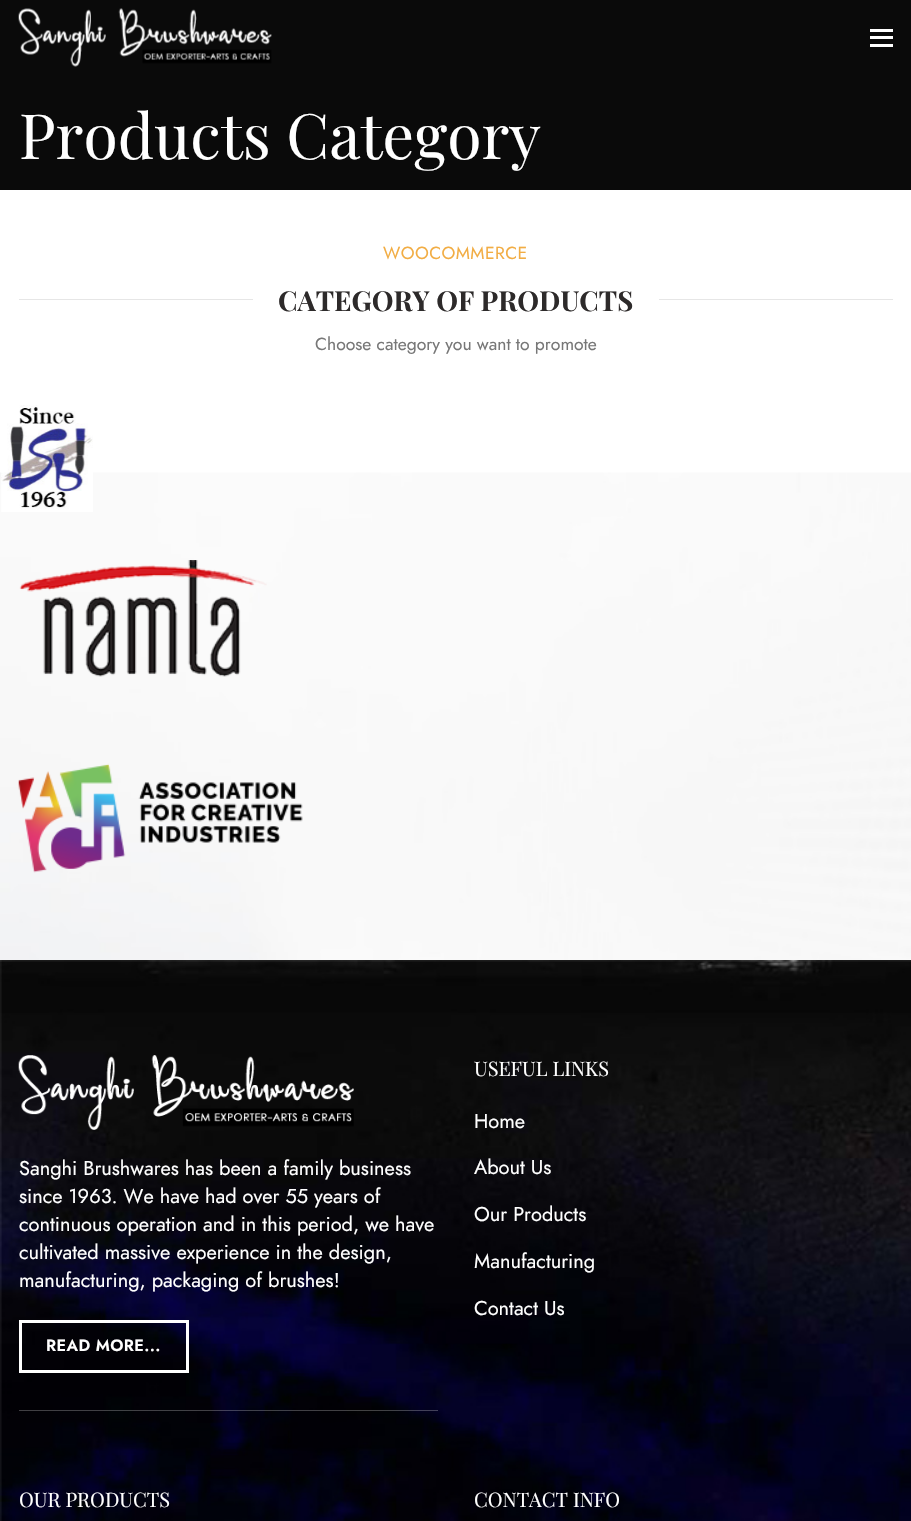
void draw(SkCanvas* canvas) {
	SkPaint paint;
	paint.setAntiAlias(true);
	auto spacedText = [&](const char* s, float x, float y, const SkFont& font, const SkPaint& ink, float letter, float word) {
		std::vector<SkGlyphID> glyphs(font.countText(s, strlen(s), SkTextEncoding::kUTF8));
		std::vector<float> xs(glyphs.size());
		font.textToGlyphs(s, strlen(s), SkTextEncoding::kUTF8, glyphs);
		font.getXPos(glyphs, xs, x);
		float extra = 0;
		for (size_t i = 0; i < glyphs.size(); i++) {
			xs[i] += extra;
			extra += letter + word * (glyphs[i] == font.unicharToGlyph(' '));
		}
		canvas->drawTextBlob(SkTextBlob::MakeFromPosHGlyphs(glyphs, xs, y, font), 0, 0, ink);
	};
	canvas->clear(0xffffffff);
	paint.setColor(0xff0a0a0a);
	canvas->drawRect(SkRect::MakeXYWH(0, 0, 911, 190), paint);
	canvas->drawImageRect(SkImages::DeferredFromEncodedData(SkData::MakeFromFileName("img1.png")), SkRect::MakeXYWH(18, 8, 254, 59), SkSamplingOptions());
	paint.setColor(0xffffffff);
	canvas->drawRect(SkRect::MakeXYWH(870, 36, 23, 3), paint);
	canvas->drawRect(SkRect::MakeXYWH(870, 29, 23, 3), paint);
	canvas->drawRect(SkRect::MakeXYWH(870, 44, 23, 3), paint);
	SkFont f1(fontMgr->matchFamilyStyle("Playfair Display", SkFontStyle::Normal()), 62.5);
	f1.setSubpixel(true);
	canvas->drawString("Products Category", 19, 159, f1, paint);
	SkFont f2(fontMgr->matchFamilyStyle("Jost", SkFontStyle::Normal()), 17.5);
	f2.setSubpixel(true);
	paint.setColor(0xfff2ad44);
	spacedText("WOOCOMMERCE", 383, 259, f2, paint, 0.4, 0);
	paint.setColor(0xffe6e6e6);
	canvas->drawRect(SkRect::MakeXYWH(19, 299, 234, 1), paint);
	SkFont f3(fontMgr->matchFamilyStyle("Playfair Display", SkFontStyle::Bold()), 27.5);
	f3.setSubpixel(true);
	paint.setColor(0xff2d2a2a);
	canvas->drawString("CATEGORY OF PRODUCTS", 278, 311, f3, paint);
	paint.setColor(0xffe6e6e6);
	canvas->drawRect(SkRect::MakeXYWH(659, 299, 234, 1), paint);
	paint.setColor(0xff777777);
	canvas->drawString("Choose category you want to promote", 315, 350, f2, paint);
	canvas->drawImageRect(SkImages::DeferredFromEncodedData(SkData::MakeFromFileName("img2.png")), SkRect::MakeXYWH(0, 472, 911, 488), SkSamplingOptions());
	canvas->drawImageRect(SkImages::DeferredFromEncodedData(SkData::MakeFromFileName("img3.png")), SkRect::MakeXYWH(19, 560, 248, 117), SkSamplingOptions());
	canvas->drawImageRect(SkImages::DeferredFromEncodedData(SkData::MakeFromFileName("img4.png")), SkRect::MakeXYWH(18, 763, 285, 110), SkSamplingOptions());
	canvas->drawImageRect(SkImages::DeferredFromEncodedData(SkData::MakeFromFileName("img5.png")), SkRect::MakeXYWH(0, 960, 911, 561), SkSamplingOptions());
	paint.setColor(0x40ffffff);
	canvas->drawRect(SkRect::MakeXYWH(19, 1410, 419, 1), paint);
	canvas->drawImageRect(SkImages::DeferredFromEncodedData(SkData::MakeFromFileName("img6.png")), SkRect::MakeXYWH(1, 405, 92, 107), SkSamplingOptions());
	canvas->drawImageRect(SkImages::DeferredFromEncodedData(SkData::MakeFromFileName("img7.png")), SkRect::MakeXYWH(18, 1055, 336, 75), SkSamplingOptions());
	SkFont f4(fontMgr->matchFamilyStyle("Jost", SkFontStyle::Normal()), 20);
	f4.setSubpixel(true);
	paint.setColor(0xffffffff);
	canvas->drawString("Sanghi Brushwares has been a family business", 19, 1175, f4, paint);
	canvas->drawString("since 1963. We have had over 55 years of", 19, 1203, f4, paint);
	canvas->drawString("continuous operation and in this period, we have", 19, 1231, f4, paint);
	canvas->drawString("cultivated massive experience in the design,", 19, 1259, f4, paint);
	canvas->drawString("manufacturing, packaging of brushes!", 19, 1287, f4, paint);
	paint.setStroke(true);
	paint.setStrokeWidth(3);
	canvas->drawRect(SkRect::MakeXYWH(20.5, 1321.5, 167, 50), paint);
	SkFont f5(fontMgr->matchFamilyStyle("Jost", SkFontStyle(600, SkFontStyle::kNormal_Width, SkFontStyle::kUpright_Slant)), 16.25);
	f5.setSubpixel(true);
	paint.setStroke(false);
	spacedText("READ MORE...", 46, 1351, f5, paint, 0.4, 0);
	SkFont f6(fontMgr->matchFamilyStyle("Playfair Display", SkFontStyle::Normal()), 20);
	f6.setSubpixel(true);
	canvas->drawString("USEFUL LINKS", 474, 1076, f6, paint);
	canvas->drawString("Home", 474, 1128, f4, paint);
	canvas->drawString("About Us", 474, 1174, f4, paint);
	canvas->drawString("Our Products", 474, 1221, f4, paint);
	canvas->drawString("Manufacturing", 474, 1268, f4, paint);
	canvas->drawString("Contact Us", 474, 1315, f4, paint);
	canvas->drawString("OUR PRODUCTS", 19, 1507, f6, paint);
	canvas->drawString("CONTACT INFO", 474, 1507, f6, paint);
}
